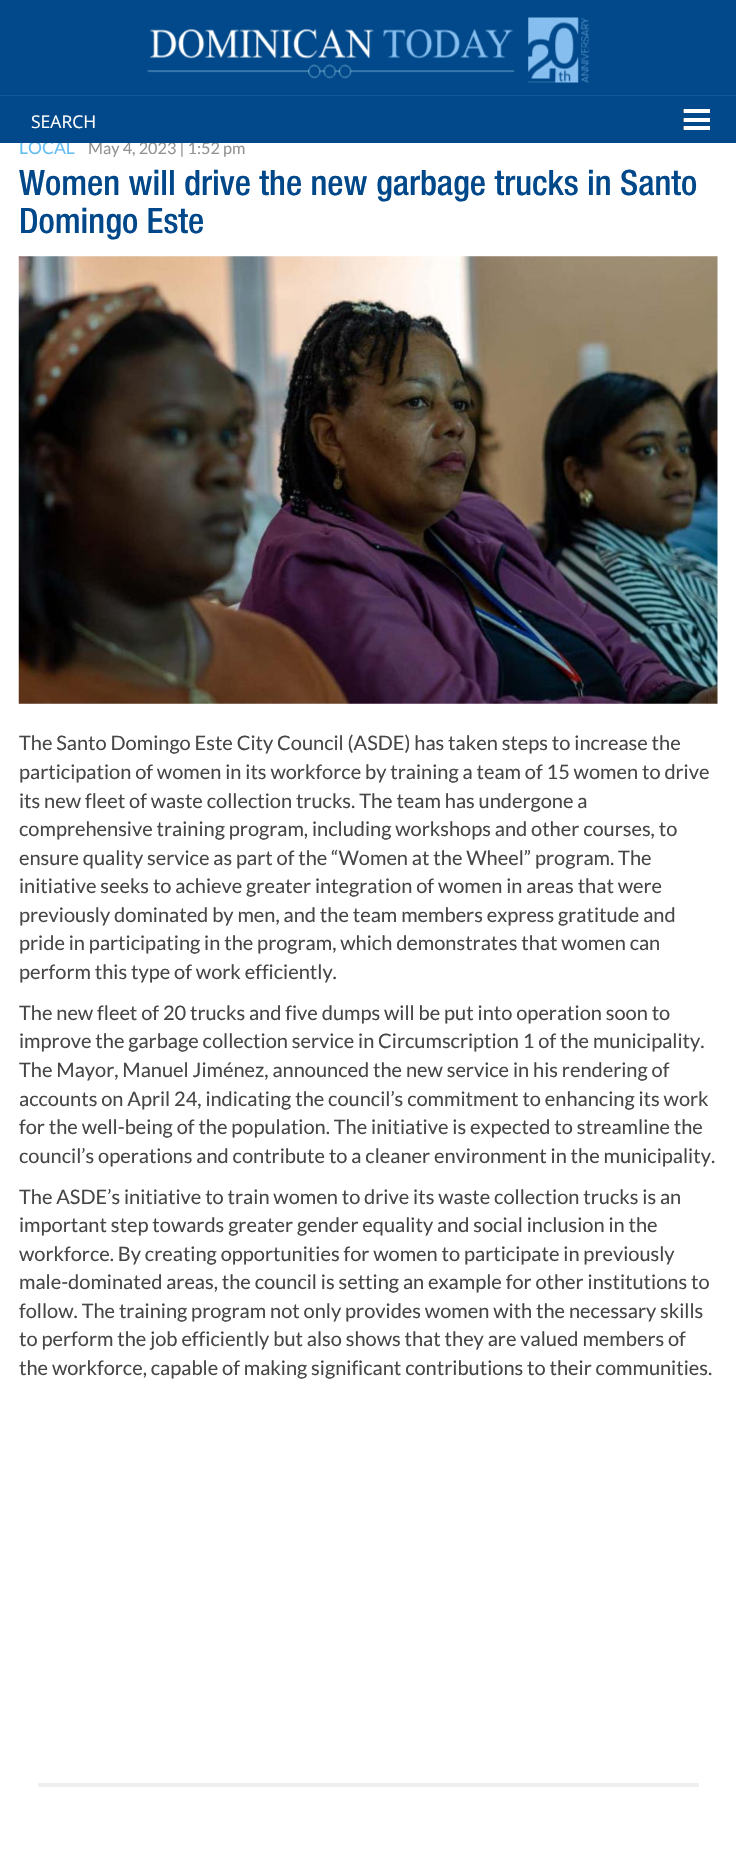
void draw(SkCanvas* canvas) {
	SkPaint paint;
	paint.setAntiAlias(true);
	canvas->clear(0xffffffff);
	SkFont f1(fontMgr->matchFamilyStyle("Lato", SkFontStyle::Normal()), 17.5);
	f1.setSubpixel(true);
	paint.setColor(0xff65bff1);
	canvas->drawString("LOCAL", 19, 154, f1, paint);
	SkFont f2(fontMgr->matchFamilyStyle("Lato", SkFontStyle::Normal()), 16.25);
	f2.setSubpixel(true);
	paint.setColor(0xff939393);
	canvas->drawString("May 4, 2023 | 1:52 pm", 88, 154, f2, paint);
	paint.setColor(0xff01498a);
	canvas->drawRect(SkRect::MakeXYWH(0, 0, 736, 143), paint);
	canvas->drawImageRect(SkImages::DeferredFromEncodedData(SkData::MakeFromFileName("img1.png")), SkRect::MakeXYWH(147, 17, 443, 66), SkSamplingOptions());
	paint.setColor(0xff0f599a);
	canvas->drawRect(SkRect::MakeXYWH(0, 95, 736, 1), paint);
	SkFont f3(fontMgr->matchFamilyStyle("Open Sans", SkFontStyle::Normal()), 17.5);
	f3.setSubpixel(true);
	paint.setColor(0xffffffff);
	canvas->drawString("SEARCH", 31, 128, f3, paint);
	paint.setColor(0xff888888);
	canvas->drawRoundRect(SkRect::MakeXYWH(683, 109, 27, 4), 1, 1, paint);
	paint.setColor(0xffffffff);
	canvas->drawRect(SkRect::MakeXYWH(684, 109, 26, 4), paint);
	paint.setColor(0xff888888);
	canvas->drawRoundRect(SkRect::MakeXYWH(683, 118, 27, 4), 1, 1, paint);
	paint.setColor(0xffffffff);
	canvas->drawRect(SkRect::MakeXYWH(684, 118, 26, 4), paint);
	paint.setColor(0xff888888);
	canvas->drawRoundRect(SkRect::MakeXYWH(683, 126, 27, 4), 1, 1, paint);
	paint.setColor(0xffffffff);
	canvas->drawRect(SkRect::MakeXYWH(684, 126, 26, 4), paint);
	SkFont f4(fontMgr->matchFamilyStyle("Helvetica Neue", SkFontStyle(500, SkFontStyle::kNormal_Width, SkFontStyle::kUpright_Slant)), 35);
	f4.setSubpixel(true);
	paint.setColor(0xff00488a);
	canvas->drawString("Women will drive the new garbage trucks in Santo", 19, 195, f4, paint);
	canvas->drawString("Domingo Este", 19, 233, f4, paint);
	canvas->drawImageRect(SkImages::DeferredFromEncodedData(SkData::MakeFromFileName("img2.png")), SkRect::MakeXYWH(18, 256, 700, 448), SkSamplingOptions());
	SkFont f5(fontMgr->matchFamilyStyle("Lato", SkFontStyle::Normal()), 20);
	f5.setSubpixel(true);
	paint.setColor(0xff474747);
	canvas->drawString("The Santo Domingo Este City Council (ASDE) has taken steps to increase the", 19, 750, f5, paint);
	canvas->drawString("participation of women in its workforce by training a team of 15 women to drive", 19, 779, f5, paint);
	canvas->drawString("its new fleet of waste collection trucks. The team has undergone a", 19, 808, f5, paint);
	canvas->drawString("comprehensive training program, including workshops and other courses, to", 19, 836, f5, paint);
	canvas->drawString("ensure quality service as part of the “Women at the Wheel” program. The", 19, 865, f5, paint);
	canvas->drawString("initiative seeks to achieve greater integration of women in areas that were", 19, 893, f5, paint);
	canvas->drawString("previously dominated by men, and the team members express gratitude and", 19, 922, f5, paint);
	canvas->drawString("pride in participating in the program, which demonstrates that women can", 19, 950, f5, paint);
	canvas->drawString("perform this type of work efficiently.", 19, 979, f5, paint);
	canvas->drawString("The new fleet of 20 trucks and five dumps will be put into operation soon to", 19, 1020, f5, paint);
	canvas->drawString("improve the garbage collection service in Circumscription 1 of the municipality.", 19, 1048, f5, paint);
	canvas->drawString("The Mayor, Manuel Jiménez, announced the new service in his rendering of", 19, 1077, f5, paint);
	canvas->drawString("accounts on April 24, indicating the council’s commitment to enhancing its work", 19, 1106, f5, paint);
	canvas->drawString("for the well-being of the population. The initiative is expected to streamline the", 19, 1134, f5, paint);
	canvas->drawString("council’s operations and contribute to a cleaner environment in the municipality.", 19, 1163, f5, paint);
	canvas->drawString("The ASDE’s initiative to train women to drive its waste collection trucks is an", 19, 1204, f5, paint);
	canvas->drawString("important step towards greater gender equality and social inclusion in the", 19, 1232, f5, paint);
	canvas->drawString("workforce. By creating opportunities for women to participate in previously", 19, 1261, f5, paint);
	canvas->drawString("male-dominated areas, the council is setting an example for other institutions to", 19, 1289, f5, paint);
	canvas->drawString("follow. The training program not only provides women with the necessary skills", 19, 1318, f5, paint);
	canvas->drawString("to perform the job efficiently but also shows that they are valued members of", 19, 1346, f5, paint);
	canvas->drawString("the workforce, capable of making significant contributions to their communities.", 19, 1375, f5, paint);
	paint.setColor(0xffefefef);
	canvas->drawRect(SkRect::MakeXYWH(38, 1783, 661, 4), paint);
}
